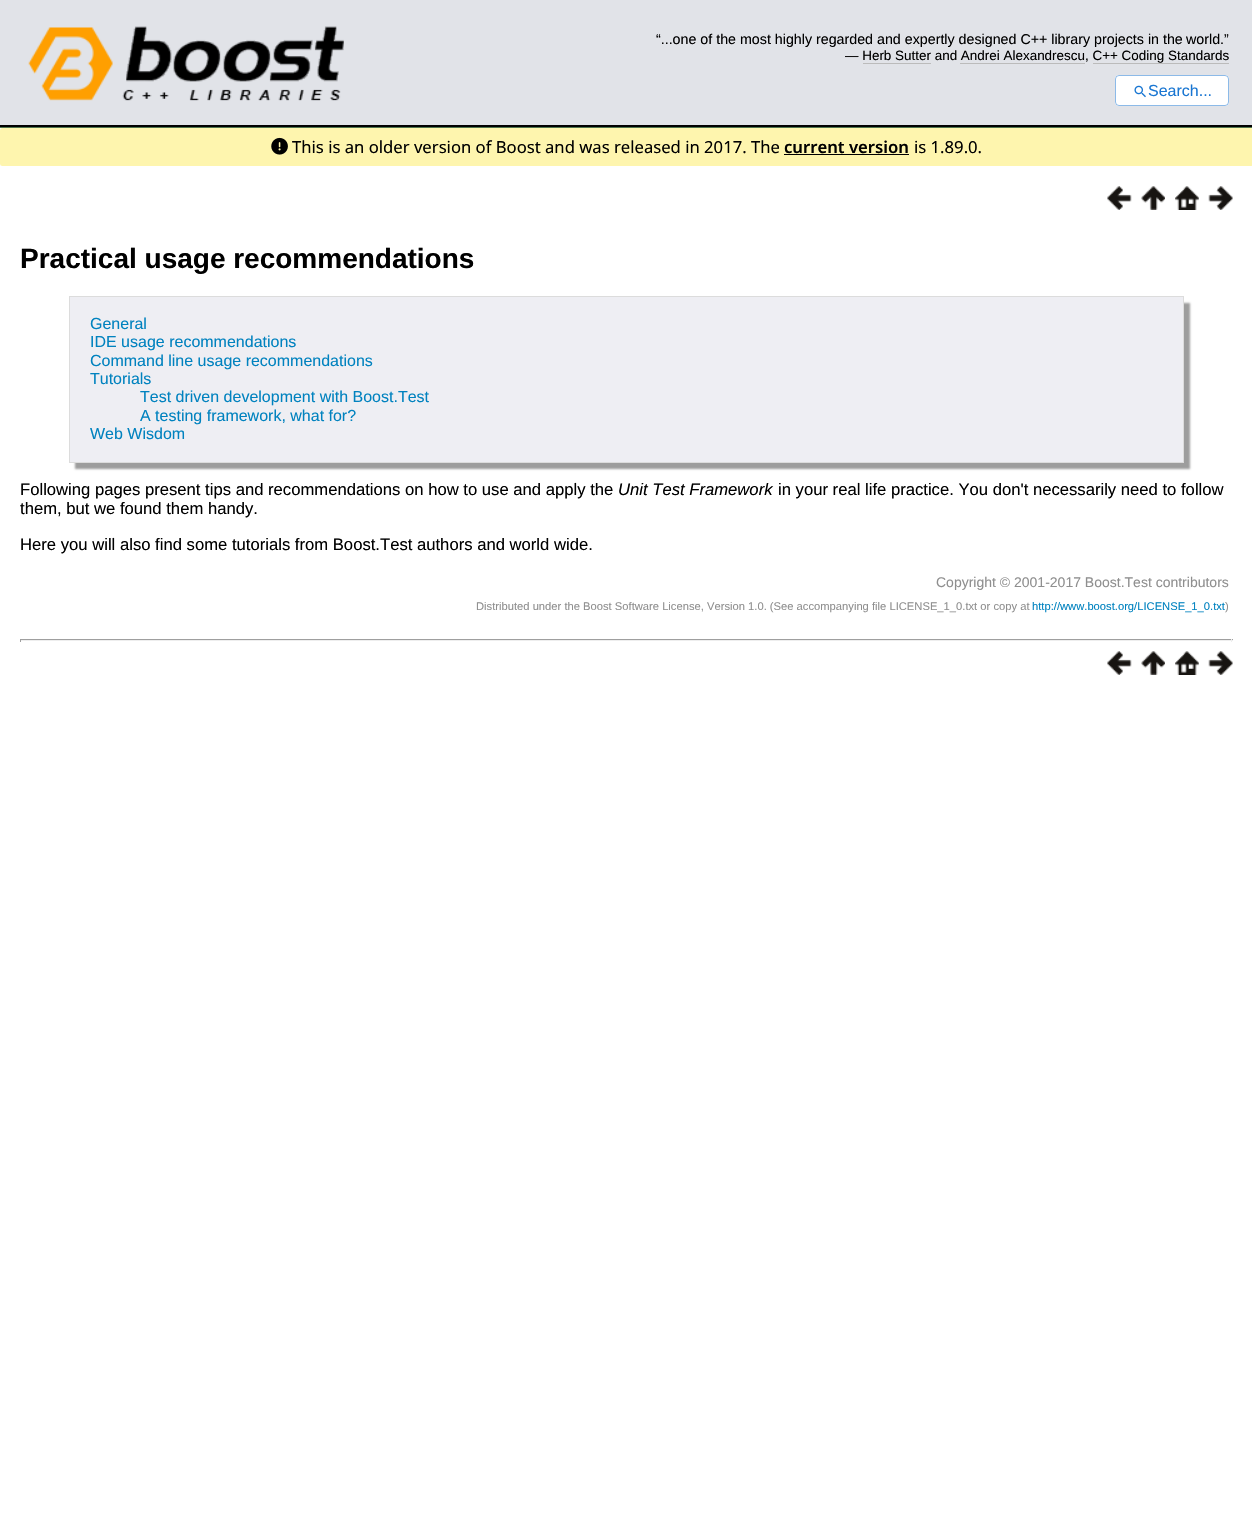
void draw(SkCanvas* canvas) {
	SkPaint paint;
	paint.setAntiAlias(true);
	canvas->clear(0xffffffff);
	paint.setColor(0xff4f744d);
	canvas->drawRect(SkRect::MakeXYWH(0, 127, 1252, 1), paint);
	paint.setColor(0xffe1e3e8);
	canvas->drawRect(SkRect::MakeXYWH(0, 0, 1252, 125), paint);
	paint.setColor(0xff000000);
	canvas->drawRect(SkRect::MakeXYWH(0, 125, 1252, 2), paint);
	canvas->drawImageRect(SkImages::DeferredFromEncodedData(SkData::MakeFromFileName("img1.png")), SkRect::MakeXYWH(28, 26, 316, 75), SkSamplingOptions());
	SkFont f1(fontMgr->matchFamilyStyle("Liberation Sans", SkFontStyle::Normal()), 14.25);
	f1.setSubpixel(true);
	canvas->drawString("“...one of the most highly regarded and expertly designed C++ library projects in the", 656, 44, f1, paint);
	canvas->drawString("world.”", 1186, 44, f1, paint);
	SkFont f2(fontMgr->matchFamilyStyle("Liberation Sans", SkFontStyle::Normal()), 13.45);
	f2.setSubpixel(true);
	canvas->drawString("— Herb Sutter and Andrei Alexandrescu, C++ Coding Standards", 845, 60, f2, paint);
	paint.setColor(0xffbbbbbb);
	canvas->drawRect(SkRect::MakeXYWH(863, 63, 68, 1), paint);
	canvas->drawRect(SkRect::MakeXYWH(960, 63, 125, 1), paint);
	canvas->drawRect(SkRect::MakeXYWH(1093, 63, 136, 1), paint);
	paint.setColor(0xffffffff);
	canvas->drawRoundRect(SkRect::MakeXYWH(1115, 75, 114, 31), 4, 4, paint);
	paint.setStroke(true);
	paint.setStrokeWidth(1);
	paint.setColor(0x801976d2);
	canvas->drawRoundRect(SkRect::MakeXYWH(1115.5, 75.5, 113, 30), 3.5, 3.5, paint);
	canvas->drawImageRect(SkImages::DeferredFromEncodedData(SkData::MakeFromFileName("img2.png")), SkRect::MakeXYWH(1134, 85, 12, 13), SkSamplingOptions());
	SkFont f3(fontMgr->matchFamilyStyle("Liberation Sans", SkFontStyle::Normal()), 16);
	f3.setSubpixel(true);
	paint.setStroke(false);
	paint.setColor(0xff1976d2);
	canvas->drawString("Search...", 1148, 96, f3, paint);
	paint.setColor(0xfffef5ae);
	canvas->drawRoundRect(SkRect::MakeXYWH(0, 128, 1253, 38), 2.5, 2.5, paint);
	canvas->drawImageRect(SkImages::DeferredFromEncodedData(SkData::MakeFromFileName("img3.png")), SkRect::MakeXYWH(271, 137, 17, 18), SkSamplingOptions());
	SkFont f4(fontMgr->matchFamilyStyle("Noto Sans", SkFontStyle::Normal()), 16.65);
	f4.setSubpixel(true);
	paint.setColor(0xff000000);
	canvas->drawString("This is an older version of Boost and was released in 2017. The", 292, 153, f4, paint);
	SkFont f5(fontMgr->matchFamilyStyle("Noto Sans", SkFontStyle(600, SkFontStyle::kNormal_Width, SkFontStyle::kUpright_Slant)), 16.65);
	f5.setSubpixel(true);
	canvas->drawString("current version", 784, 153, f5, paint);
	canvas->drawRect(SkRect::MakeXYWH(784, 154, 125, 1), paint);
	canvas->drawString("is 1.89.0.", 914, 153, f4, paint);
	canvas->drawImageRect(SkImages::DeferredFromEncodedData(SkData::MakeFromFileName("img4.png")), SkRect::MakeXYWH(1107, 186, 25, 24), SkSamplingOptions());
	canvas->drawImageRect(SkImages::DeferredFromEncodedData(SkData::MakeFromFileName("img5.png")), SkRect::MakeXYWH(1141, 186, 24, 24), SkSamplingOptions());
	canvas->drawImageRect(SkImages::DeferredFromEncodedData(SkData::MakeFromFileName("img6.png")), SkRect::MakeXYWH(1175, 186, 24, 24), SkSamplingOptions());
	canvas->drawImageRect(SkImages::DeferredFromEncodedData(SkData::MakeFromFileName("img7.png")), SkRect::MakeXYWH(1208, 186, 25, 24), SkSamplingOptions());
	SkFont f6(fontMgr->matchFamilyStyle("Liberation Sans", SkFontStyle::Bold()), 28);
	f6.setSubpixel(true);
	canvas->drawString("Practical usage recommendations", 20, 268, f6, paint);
	paint.setColor(0xff9d9d9d);
	paint.setMaskFilter(SkMaskFilter::MakeBlur(kNormal_SkBlurStyle, 1));
	canvas->drawRect(SkRect::MakeXYWH(75, 303, 1115, 166), paint);
	paint.setMaskFilter(nullptr);
	paint.setColor(0xffeeeef3);
	canvas->drawRect(SkRect::MakeXYWH(69.5, 296.5, 1114, 166), paint);
	paint.setStroke(true);
	paint.setColor(0xffdcdcdc);
	canvas->drawRect(SkRect::MakeXYWH(69.5, 296.5, 1114, 166), paint);
	paint.setStroke(false);
	paint.setColor(0xff0082bf);
	canvas->drawString("General", 90, 329, f3, paint);
	canvas->drawString("IDE usage recommendations", 90, 347, f3, paint);
	canvas->drawString("Command line usage recommendations", 90, 366, f3, paint);
	canvas->drawString("Tutorials", 90, 384, f3, paint);
	canvas->drawString("Test driven development with Boost.Test", 140, 402, f3, paint);
	canvas->drawString("A testing framework, what for?", 140, 421, f3, paint);
	canvas->drawString("Web Wisdom", 90, 439, f3, paint);
	SkFont f7(fontMgr->matchFamilyStyle("Liberation Sans", SkFontStyle::Normal()), 16.65);
	f7.setSubpixel(true);
	paint.setColor(0xff000000);
	canvas->drawString("Following pages present tips and recommendations on how to use and apply the", 20, 495, f7, paint);
	SkFont f8(fontMgr->matchFamilyStyle("Liberation Sans", SkFontStyle::Italic()), 16.65);
	f8.setSubpixel(true);
	canvas->drawString("Unit Test Framework", 618, 495, f8, paint);
	canvas->drawString("in your real life practice. You don't necessarily need to follow", 778, 495, f7, paint);
	canvas->drawString("them, but we found them handy.", 20, 514, f7, paint);
	canvas->drawString("Here you will also find some tutorials from Boost.Test authors and world wide.", 20, 550, f7, paint);
	SkFont f9(fontMgr->matchFamilyStyle("Liberation Sans", SkFontStyle::Normal()), 14);
	f9.setSubpixel(true);
	paint.setColor(0xff8f8f8f);
	canvas->drawString("Copyright © 2001-2017 Boost.Test contributors", 936, 587, f9, paint);
	SkFont f10(fontMgr->matchFamilyStyle("Liberation Sans", SkFontStyle::Normal()), 11.2);
	f10.setSubpixel(true);
	canvas->drawString("Distributed under the Boost Software License, Version 1.0. (See accompanying", 476, 610, f10, paint);
	canvas->drawString("file LICENSE_1_0.txt or copy at", 872, 610, f10, paint);
	paint.setColor(0xff0082bf);
	canvas->drawString("http://www.boost.org/LICENSE_1_0.txt", 1032, 610, f10, paint);
	paint.setColor(0xff8f8f8f);
	canvas->drawString(")", 1225, 610, f10, paint);
	paint.setColor(0xff9f9f9f);
	canvas->drawRect(SkRect::MakeXYWH(20, 639, 1213, 1), paint);
	paint.setColor(0xffeeeeee);
	canvas->drawRect(SkRect::MakeXYWH(1231, 639, 1, 3), paint);
	canvas->drawRect(SkRect::MakeXYWH(20, 640, 1213, 1), paint);
	paint.setColor(0xff9f9f9f);
	canvas->drawRect(SkRect::MakeXYWH(20, 639, 1, 3), paint);
	canvas->drawImageRect(SkImages::DeferredFromEncodedData(SkData::MakeFromFileName("img4.png")), SkRect::MakeXYWH(1107, 651, 25, 24), SkSamplingOptions());
	canvas->drawImageRect(SkImages::DeferredFromEncodedData(SkData::MakeFromFileName("img5.png")), SkRect::MakeXYWH(1141, 651, 24, 24), SkSamplingOptions());
	canvas->drawImageRect(SkImages::DeferredFromEncodedData(SkData::MakeFromFileName("img6.png")), SkRect::MakeXYWH(1175, 651, 24, 24), SkSamplingOptions());
	canvas->drawImageRect(SkImages::DeferredFromEncodedData(SkData::MakeFromFileName("img7.png")), SkRect::MakeXYWH(1208, 651, 25, 24), SkSamplingOptions());
}
